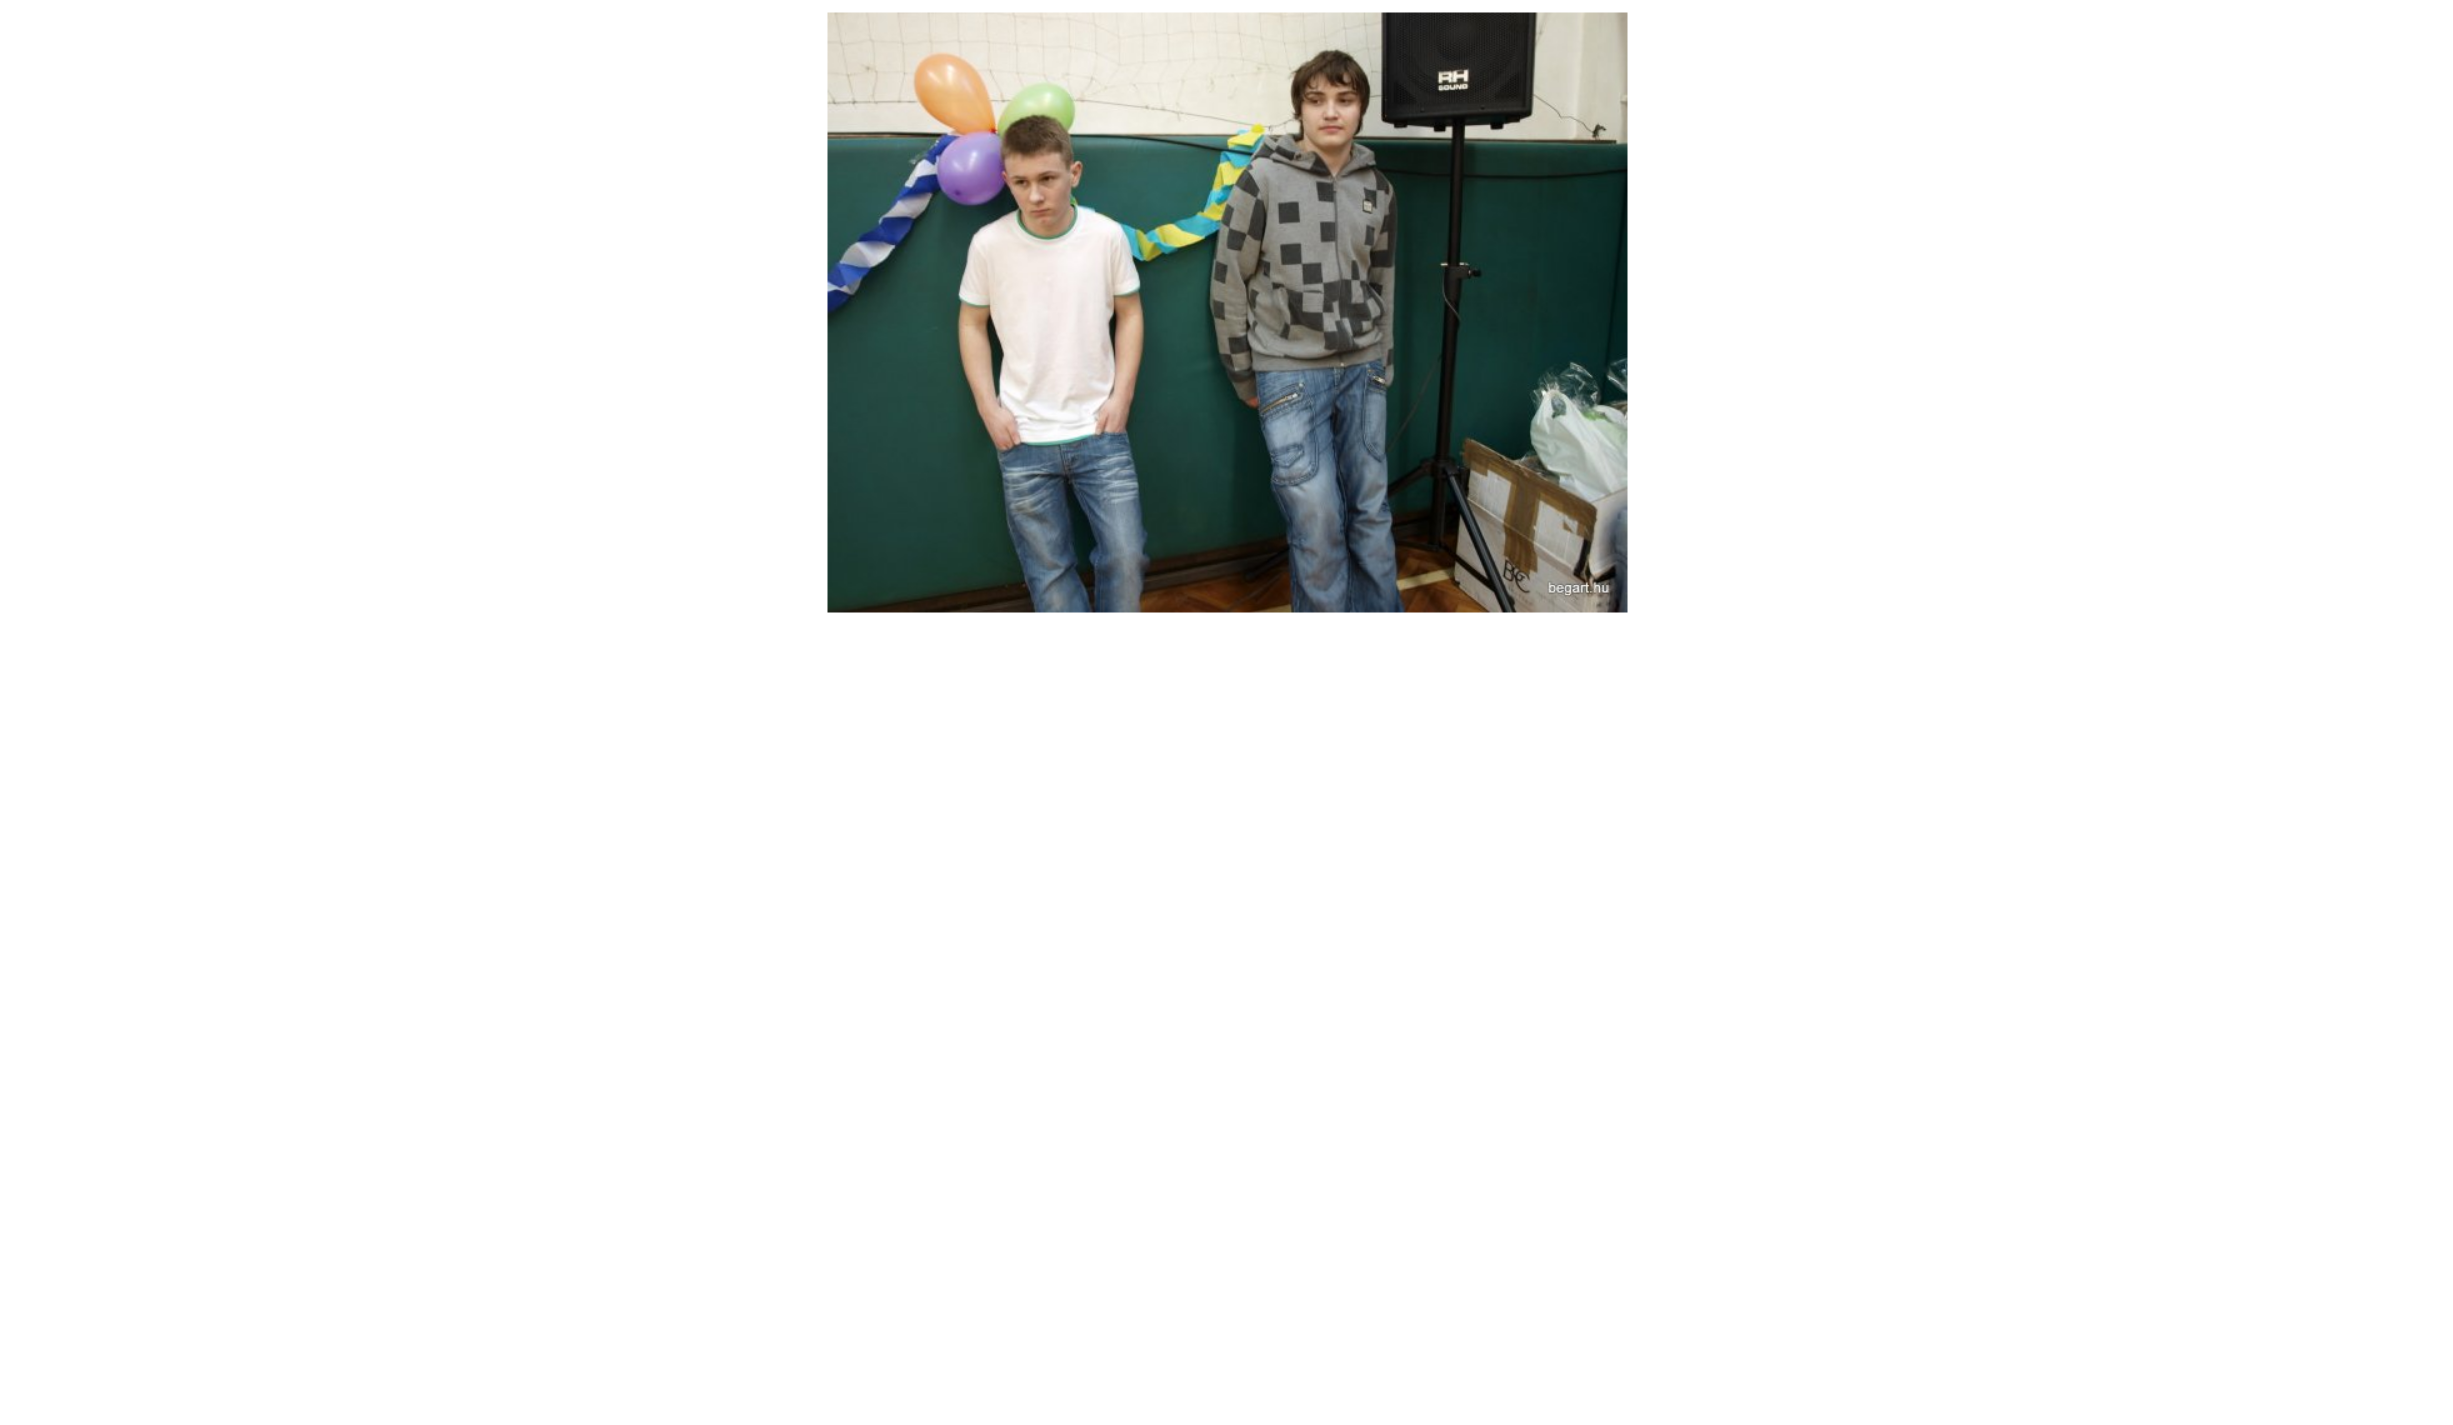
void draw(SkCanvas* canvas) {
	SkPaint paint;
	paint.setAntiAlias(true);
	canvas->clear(0xffffffff);
	canvas->drawImageRect(SkImages::DeferredFromEncodedData(SkData::MakeFromFileName("img1.png")), SkRect::MakeXYWH(827, 12, 801, 601), SkSamplingOptions());
}
